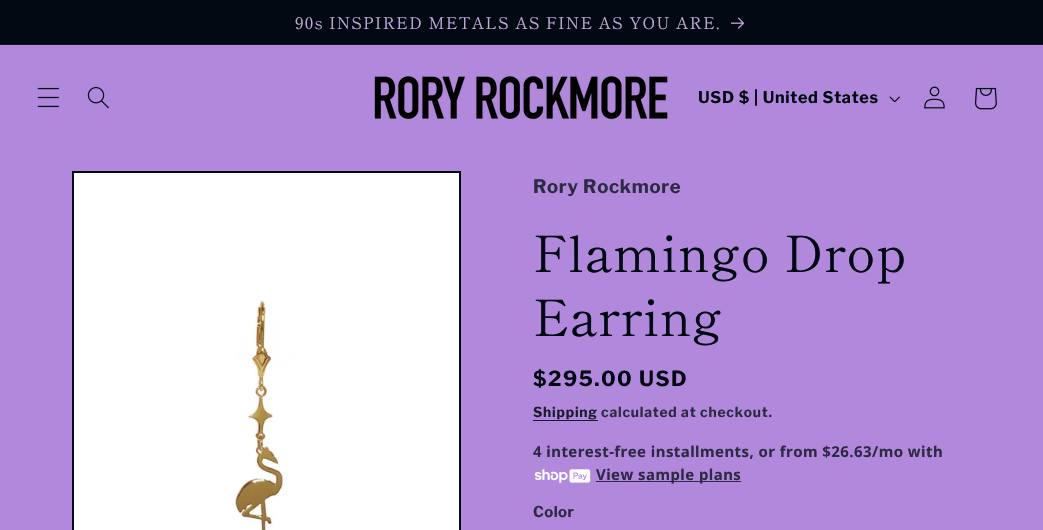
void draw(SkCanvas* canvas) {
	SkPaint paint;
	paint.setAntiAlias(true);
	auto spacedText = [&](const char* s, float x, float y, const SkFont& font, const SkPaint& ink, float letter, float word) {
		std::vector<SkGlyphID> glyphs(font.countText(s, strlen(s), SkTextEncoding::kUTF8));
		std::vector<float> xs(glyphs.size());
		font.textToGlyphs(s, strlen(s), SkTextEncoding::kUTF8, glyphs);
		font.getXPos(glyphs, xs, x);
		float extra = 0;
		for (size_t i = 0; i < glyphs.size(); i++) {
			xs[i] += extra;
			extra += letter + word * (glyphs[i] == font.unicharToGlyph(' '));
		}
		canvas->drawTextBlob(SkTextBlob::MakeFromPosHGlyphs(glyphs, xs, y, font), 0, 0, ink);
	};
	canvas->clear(0xffb188dc);
	paint.setColor(0xff020912);
	canvas->drawRect(SkRect::MakeXYWH(0, 0, 1043, 44), paint);
	paint.setColor(0xff111622);
	canvas->drawRect(SkRect::MakeXYWH(0, 44, 1043, 1), paint);
	SkFont f1(fontMgr->matchFamilyStyle("Shippori Mincho", SkFontStyle::Normal()), 16.25);
	f1.setSubpixel(true);
	paint.setColor(0xffc1a9da);
	spacedText("90s INSPIRED METALS AS FINE AS YOU ARE.", 295, 29, f1, paint, 1.15, 0);
	canvas->drawImageRect(SkImages::DeferredFromEncodedData(SkData::MakeFromFileName("img1.png")), SkRect::MakeXYWH(731, 17, 13, 12), SkSamplingOptions());
	canvas->drawImageRect(SkImages::DeferredFromEncodedData(SkData::MakeFromFileName("img2.png")), SkRect::MakeXYWH(37, 87, 22, 21), SkSamplingOptions());
	canvas->drawImageRect(SkImages::DeferredFromEncodedData(SkData::MakeFromFileName("img3.png")), SkRect::MakeXYWH(87, 87, 22, 22), SkSamplingOptions());
	canvas->drawImageRect(SkImages::DeferredFromEncodedData(SkData::MakeFromFileName("img4.png")), SkRect::MakeXYWH(374, 76, 294, 43), SkSamplingOptions());
	SkFont f2(fontMgr->matchFamilyStyle("Libre Franklin", SkFontStyle::Bold()), 16.1);
	f2.setSubpixel(true);
	paint.setColor(0xff020912);
	spacedText("USD $ | United States", 698, 103, f2, paint, 0.7, 0);
	canvas->drawImageRect(SkImages::DeferredFromEncodedData(SkData::MakeFromFileName("img5.png")), SkRect::MakeXYWH(889, 96, 11, 6), SkSamplingOptions());
	canvas->drawImageRect(SkImages::DeferredFromEncodedData(SkData::MakeFromFileName("img6.png")), SkRect::MakeXYWH(924, 86, 21, 23), SkSamplingOptions());
	canvas->drawImageRect(SkImages::DeferredFromEncodedData(SkData::MakeFromFileName("img7.png")), SkRect::MakeXYWH(974, 87, 23, 23), SkSamplingOptions());
	paint.setStroke(true);
	paint.setStrokeWidth(2);
	canvas->drawRect(SkRect::MakeXYWH(73, 172, 387, 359), paint);
	canvas->drawImageRect(SkImages::DeferredFromEncodedData(SkData::MakeFromFileName("img8.png")), SkRect::MakeXYWH(74, 173, 385, 357), SkSamplingOptions());
	SkFont f3(fontMgr->matchFamilyStyle("Libre Franklin", SkFontStyle::Bold()), 18.5);
	f3.setSubpixel(true);
	paint.setStroke(false);
	paint.setColor(0xff2e2945);
	spacedText("Rory Rockmore", 533, 193, f3, paint, 0.7, 0);
	SkFont f4(fontMgr->matchFamilyStyle("Shippori Mincho", SkFontStyle::Normal()), 50);
	f4.setSubpixel(true);
	paint.setColor(0xff020912);
	spacedText("Flamingo Drop", 533, 272, f4, paint, 0.75, 0);
	spacedText("Earring", 533, 336, f4, paint, 0.75, 0);
	SkFont f5(fontMgr->matchFamilyStyle("Libre Franklin", SkFontStyle::Bold()), 20.75);
	f5.setSubpixel(true);
	spacedText("$295.00 USD", 533, 386, f5, paint, 1.5, 0);
	SkFont f6(fontMgr->matchFamilyStyle("Libre Franklin", SkFontStyle::Bold()), 13.75);
	f6.setSubpixel(true);
	paint.setColor(0xff1c1c30);
	spacedText("Shipping", 533, 417, f6, paint, 0.8, 0);
	canvas->drawRect(SkRect::MakeXYWH(533, 420, 65, 1), paint);
	paint.setColor(0xff2e2945);
	spacedText("calculated at checkout.", 601, 417, f6, paint, 0.8, 0);
	SkFont f7(fontMgr->matchFamilyStyle("Noto Sans", SkFontStyle::Bold()), 14.95);
	f7.setSubpixel(true);
	spacedText("4 interest-free installments, or from $26.63/mo with", 533, 457, f7, paint, 0.45, 0);
	canvas->drawImageRect(SkImages::DeferredFromEncodedData(SkData::MakeFromFileName("img9.png")), SkRect::MakeXYWH(534, 469, 57, 14), SkSamplingOptions());
	canvas->drawRect(SkRect::MakeXYWH(596, 481, 145, 1), paint);
	spacedText("View sample plans", 596, 480, f7, paint, 0.45, 0);
	SkFont f8(fontMgr->matchFamilyStyle("Libre Franklin", SkFontStyle::Bold()), 14.95);
	f8.setSubpixel(true);
	spacedText("Color", 533, 517, f8, paint, 0.45, 0);
}
